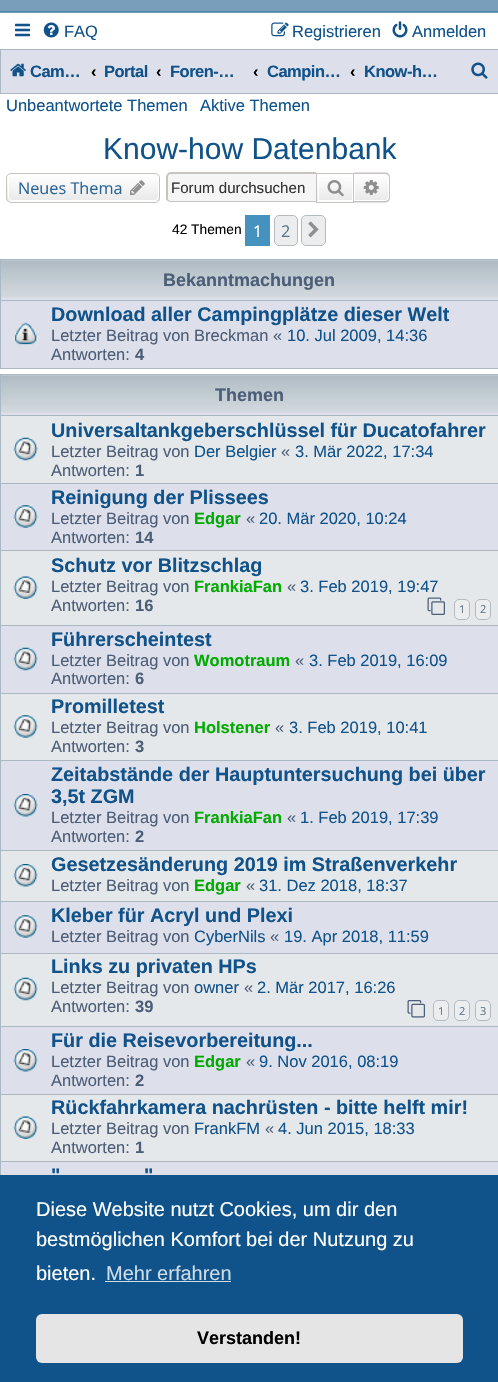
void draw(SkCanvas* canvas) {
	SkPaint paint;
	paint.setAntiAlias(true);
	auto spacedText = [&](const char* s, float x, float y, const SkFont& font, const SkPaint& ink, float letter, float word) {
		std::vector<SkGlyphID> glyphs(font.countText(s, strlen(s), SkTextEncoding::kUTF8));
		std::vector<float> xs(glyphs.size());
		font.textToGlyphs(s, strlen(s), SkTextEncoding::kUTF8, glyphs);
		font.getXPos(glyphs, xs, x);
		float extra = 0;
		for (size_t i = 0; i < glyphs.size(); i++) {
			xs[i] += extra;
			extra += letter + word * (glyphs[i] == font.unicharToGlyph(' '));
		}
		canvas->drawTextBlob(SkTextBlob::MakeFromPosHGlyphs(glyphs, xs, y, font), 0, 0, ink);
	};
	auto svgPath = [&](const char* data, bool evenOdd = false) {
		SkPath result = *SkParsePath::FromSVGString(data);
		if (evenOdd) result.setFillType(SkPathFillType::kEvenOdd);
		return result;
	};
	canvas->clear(0xff799ebc);
	paint.setColor(0xff4787a7);
	canvas->drawRect(SkRect::MakeXYWH(0, 11, 498, 1), paint);
	paint.setColor(0xffffffff);
	canvas->drawRect(SkRect::MakeXYWH(0, 13, 498, 361), paint);
	canvas->drawImageRect(SkImages::DeferredFromEncodedData(SkData::MakeFromFileName("img1.png")), SkRect::MakeXYWH(15, 23, 15, 14), SkSamplingOptions());
	canvas->drawImageRect(SkImages::DeferredFromEncodedData(SkData::MakeFromFileName("img2.png")), SkRect::MakeXYWH(43, 22, 16, 16), SkSamplingOptions());
	SkFont f1(fontMgr->matchFamilyStyle("Liberation Sans", SkFontStyle::Normal()), 16.5);
	f1.setSubpixel(true);
	paint.setColor(0xff105289);
	canvas->drawString("FAQ", 64, 37, f1, paint);
	canvas->drawImageRect(SkImages::DeferredFromEncodedData(SkData::MakeFromFileName("img3.png")), SkRect::MakeXYWH(271, 22, 18, 15), SkSamplingOptions());
	canvas->drawString("Registrieren", 292, 37, f1, paint);
	canvas->drawImageRect(SkImages::DeferredFromEncodedData(SkData::MakeFromFileName("img4.png")), SkRect::MakeXYWH(392, 21, 16, 17), SkSamplingOptions());
	canvas->drawString("Anmelden", 412, 37, f1, paint);
	paint.setColor(0xffdde0ea);
	canvas->drawRect(SkRect::MakeXYWH(0.5, 49.5, 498, 44), paint);
	paint.setStroke(true);
	paint.setStrokeWidth(1);
	paint.setColor(0xffa9b8c2);
	canvas->drawRect(SkRect::MakeXYWH(0.5, 49.5, 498, 44), paint);
	canvas->drawImageRect(SkImages::DeferredFromEncodedData(SkData::MakeFromFileName("img5.png")), SkRect::MakeXYWH(10, 63, 16, 14), SkSamplingOptions());
	SkFont f2(fontMgr->matchFamilyStyle("Liberation Sans", SkFontStyle::Bold()), 16.5);
	f2.setSubpixel(true);
	paint.setStroke(false);
	paint.setColor(0xff105289);
	spacedText("Cam…", 30, 77, f2, paint, -0.5, 0);
	paint.setColor(0xff000000);
	canvas->drawString("‹", 91, 77, f2, paint);
	paint.setColor(0xff105289);
	spacedText("Portal", 104, 77, f2, paint, -0.5, 0);
	paint.setColor(0xff000000);
	canvas->drawString("‹", 156, 77, f2, paint);
	paint.setColor(0xff105289);
	spacedText("Foren-…", 170, 77, f2, paint, -0.5, 0);
	paint.setColor(0xff000000);
	canvas->drawString("‹", 253, 77, f2, paint);
	paint.setColor(0xff105289);
	spacedText("Campin…", 267, 77, f2, paint, -0.5, 0);
	paint.setColor(0xff000000);
	canvas->drawString("‹", 350, 77, f2, paint);
	paint.setColor(0xff105289);
	spacedText("Know-h…", 364, 77, f2, paint, -0.5, 0);
	canvas->drawImageRect(SkImages::DeferredFromEncodedData(SkData::MakeFromFileName("img6.png")), SkRect::MakeXYWH(471, 62, 17, 17), SkSamplingOptions());
	canvas->drawString("Unbeantwortete Themen", 6, 111, f1, paint);
	canvas->drawString("Aktive Themen", 200, 111, f1, paint);
	SkFont f3(fontMgr->matchFamilyStyle("Liberation Sans", SkFontStyle::Normal()), 30);
	f3.setSubpixel(true);
	canvas->drawString("Know-how Datenbank", 103, 159, f3, paint);
	canvas->save();
	canvas->clipPath(svgPath("M11 173H155C158 173 160 175 160 178V198C160 201 158 203 155 203H11C8 203 6 201 6 198V178C6 175 8 173 11 173Z"), true);
	{
		const SkColor colors[] = {0xffffffff, 0xffe9e9e9};
		const float stops[] = {0, 1};
		const SkPoint ends[] = {{83, 174}, {83, 201}};
		paint.setShader(SkGradientShader::MakeLinear(ends, colors, stops, 2, SkTileMode::kClamp));
		paint.setAlpha(255);
	}
	canvas->drawRect(SkRect::MakeXYWH(6, 174, 154, 27), paint);
	canvas->restore();
	paint.setStroke(true);
	paint.setShader(nullptr);
	paint.setColor(0xffffffff);
	canvas->drawRoundRect(SkRect::MakeXYWH(8.5, 174.5, 150, 26), 3.5, 3.5, paint);
	paint.setColor(0xffc7c3bf);
	canvas->drawRoundRect(SkRect::MakeXYWH(6.5, 173.5, 153, 29), 4.5, 4.5, paint);
	SkFont f4(fontMgr->matchFamilyStyle("Open Sans", SkFontStyle::Normal()), 16.25);
	f4.setSubpixel(true);
	paint.setStroke(false);
	paint.setColor(0xff2a6496);
	canvas->drawString("Neues Thema", 18, 194, f4, paint);
	canvas->drawImageRect(SkImages::DeferredFromEncodedData(SkData::MakeFromFileName("img7.png")), SkRect::MakeXYWH(130, 180, 15, 15), SkSamplingOptions());
	paint.setColor(0xfff5f5f5);
	canvas->drawPath(svgPath("M172 174H316V201H172C170 201 168 199 168 197V178C168 176 170 174 172 174Z"), paint);
	paint.setColor(0xffc7c3bf);
	canvas->drawPath(svgPath("M171 172H316V202H171C168 202 166 200 166 198V178C166 175 168 172 171 172ZM171 174H316V201H171C169 201 168 200 168 198V178C168 175 169 174 171 174Z", true), paint);
	SkFont f5(fontMgr->matchFamilyStyle("Liberation Sans", SkFontStyle::Normal()), 15.1);
	f5.setSubpixel(true);
	paint.setColor(0xff333333);
	canvas->drawString("Forum durchsuchen", 171, 193, f5, paint);
	{
		const SkColor colors[] = {0xffffffff, 0xffe9e9e9};
		const float stops[] = {0, 1};
		const SkPoint ends[] = {{335, 174}, {335, 201}};
		paint.setShader(SkGradientShader::MakeLinear(ends, colors, stops, 2, SkTileMode::kClamp));
		paint.setAlpha(255);
	}
	canvas->drawRect(SkRect::MakeXYWH(317, 177, 35, 24), paint);
	paint.setStroke(true);
	paint.setShader(nullptr);
	paint.setColor(0xffffffff);
	canvas->drawRect(SkRect::MakeXYWH(318.5, 174.5, 34, 26), paint);
	paint.setColor(0xffc7c3bf);
	canvas->drawRect(SkRect::MakeXYWH(316.5, 173.5, 37, 29), paint);
	canvas->drawImageRect(SkImages::DeferredFromEncodedData(SkData::MakeFromFileName("img8.png")), SkRect::MakeXYWH(327, 180, 17, 17), SkSamplingOptions());
	paint.setStroke(false);
	{
		const SkColor colors[] = {0xffffffff, 0xffe9e9e9};
		const float stops[] = {0, 1};
		const SkPoint ends[] = {{371, 174}, {371, 201}};
		paint.setShader(SkGradientShader::MakeLinear(ends, colors, stops, 2, SkTileMode::kClamp));
		paint.setAlpha(255);
	}
	canvas->drawPath(svgPath("M354.5 174.5H385C387 174.5 388.5 176 388.5 178V197C388.5 199 387 200.5 385 200.5H354.5Z"), paint);
	paint.setStroke(true);
	paint.setShader(nullptr);
	paint.setColor(0xffffffff);
	canvas->drawPath(svgPath("M354.5 174.5H385C387 174.5 388.5 176 388.5 178V197C388.5 199 387 200.5 385 200.5H354.5Z"), paint);
	paint.setStroke(false);
	paint.setColor(0xffc7c3bf);
	canvas->drawPath(svgPath("M354 172.5H385C388 172.5 390 174.5 390 177.5V197.5C390 200.5 388 202.5 385 202.5H354ZM354 174H385C387 174 389 175.5 389 177.5V197.5C389 199.5 387 201 385 201H354Z", true), paint);
	canvas->drawImageRect(SkImages::DeferredFromEncodedData(SkData::MakeFromFileName("img9.png")), SkRect::MakeXYWH(363, 180, 16, 15), SkSamplingOptions());
	SkFont f6(fontMgr->matchFamilyStyle("Liberation Sans", SkFontStyle::Normal()), 13.75);
	f6.setSubpixel(true);
	paint.setColor(0xff000000);
	canvas->drawString("42 Themen", 172, 234, f6, paint);
	paint.setColor(0xff4692bf);
	canvas->drawRect(SkRect::MakeXYWH(245, 215, 25, 31), paint);
	paint.setColor(0xffffffff);
	canvas->drawString("1", 253, 237, f4, paint);
	paint.setColor(0xffecedee);
	canvas->drawRoundRect(SkRect::MakeXYWH(274.5, 215.5, 23, 30), 4.5, 4.5, paint);
	paint.setStroke(true);
	paint.setColor(0xffb4bac0);
	canvas->drawRoundRect(SkRect::MakeXYWH(274.5, 215.5, 23, 30), 4.5, 4.5, paint);
	paint.setStroke(false);
	paint.setColor(0xff5c758c);
	canvas->drawString("2", 281, 237, f4, paint);
	paint.setColor(0xffecedee);
	canvas->drawRoundRect(SkRect::MakeXYWH(301.5, 215.5, 24, 30), 4.5, 4.5, paint);
	paint.setStroke(true);
	paint.setColor(0xffb4bac0);
	canvas->drawRoundRect(SkRect::MakeXYWH(301.5, 215.5, 24, 30), 4.5, 4.5, paint);
	canvas->drawImageRect(SkImages::DeferredFromEncodedData(SkData::MakeFromFileName("img10.png")), SkRect::MakeXYWH(308, 221, 11, 17), SkSamplingOptions());
	paint.setStroke(false);
	paint.setColor(0xffdde0ea);
	canvas->drawRect(SkRect::MakeXYWH(1, 260, 497, 108), paint);
	canvas->drawImageRect(SkImages::DeferredFromEncodedData(SkData::MakeFromFileName("img11.png")), SkRect::MakeXYWH(1, 260, 497, 38), SkSamplingOptions());
	paint.setStroke(true);
	paint.setColor(0xffa9b8c2);
	canvas->drawRect(SkRect::MakeXYWH(0.5, 259.5, 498, 109), paint);
	SkFont f7(fontMgr->matchFamilyStyle("Liberation Sans", SkFontStyle::Bold()), 18);
	f7.setSubpixel(true);
	paint.setStroke(false);
	paint.setColor(0xff4c5d77);
	canvas->drawString("Bekanntmachungen", 163, 286, f7, paint);
	paint.setColor(0xffa9b8c2);
	canvas->drawRect(SkRect::MakeXYWH(1, 300, 497, 1), paint);
	canvas->drawImageRect(SkImages::DeferredFromEncodedData(SkData::MakeFromFileName("img12.png")), SkRect::MakeXYWH(13, 322, 25, 23), SkSamplingOptions());
	SkFont f8(fontMgr->matchFamilyStyle("Liberation Sans", SkFontStyle::Bold()), 19.8);
	f8.setSubpixel(true);
	paint.setColor(0xff105289);
	canvas->drawString("Download aller Campingplätze dieser Welt", 51, 321, f8, paint);
	paint.setColor(0xff4c5d77);
	canvas->drawString("Letzter Beitrag von Breckman «", 51, 341, f1, paint);
	paint.setColor(0xff105289);
	canvas->drawString("10. Jul 2009, 14:36", 287, 341, f1, paint);
	paint.setColor(0xff4c5d77);
	canvas->drawString("Antworten:", 51, 360, f1, paint);
	canvas->drawString("4", 135, 360, f2, paint);
	paint.setColor(0xffdde0ea);
	canvas->drawRect(SkRect::MakeXYWH(1, 375, 497, 800), paint);
	canvas->drawImageRect(SkImages::DeferredFromEncodedData(SkData::MakeFromFileName("img13.png")), SkRect::MakeXYWH(1, 375, 497, 38), SkSamplingOptions());
	paint.setStroke(true);
	paint.setColor(0xffa9b8c2);
	canvas->drawRect(SkRect::MakeXYWH(0.5, 374.5, 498, 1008), paint);
	paint.setStroke(false);
	paint.setColor(0xff4c5d77);
	canvas->drawString("Themen", 215, 401, f7, paint);
	paint.setColor(0xffe5e8ea);
	canvas->drawRect(SkRect::MakeXYWH(1, 416, 497, 67), paint);
	paint.setColor(0xffa9b8c2);
	canvas->drawRect(SkRect::MakeXYWH(1, 415, 497, 1), paint);
	canvas->drawImageRect(SkImages::DeferredFromEncodedData(SkData::MakeFromFileName("img14.png")), SkRect::MakeXYWH(13, 437, 25, 24), SkSamplingOptions());
	paint.setColor(0xff105289);
	canvas->drawString("Universaltankgeberschlüssel für Ducatofahrer", 51, 437, f8, paint);
	paint.setColor(0xff4c5d77);
	canvas->drawString("Letzter Beitrag von", 51, 457, f1, paint);
	paint.setColor(0xff105289);
	canvas->drawString("Der Belgier", 194, 457, f1, paint);
	paint.setColor(0xff4c5d77);
	canvas->drawString("«", 281, 457, f1, paint);
	paint.setColor(0xff105289);
	canvas->drawString("3. Mär 2022, 17:34", 295, 457, f1, paint);
	paint.setColor(0xff4c5d77);
	canvas->drawString("Antworten:", 51, 476, f1, paint);
	canvas->drawString("1", 135, 476, f2, paint);
	paint.setColor(0xffa9b8c2);
	canvas->drawRect(SkRect::MakeXYWH(1, 483, 497, 1), paint);
	canvas->drawImageRect(SkImages::DeferredFromEncodedData(SkData::MakeFromFileName("img15.png")), SkRect::MakeXYWH(13, 505, 25, 23), SkSamplingOptions());
	paint.setColor(0xff105289);
	canvas->drawString("Reinigung der Plissees", 51, 504, f8, paint);
	paint.setColor(0xff4c5d77);
	canvas->drawString("Letzter Beitrag von", 51, 524, f1, paint);
	paint.setColor(0xff00aa00);
	canvas->drawString("Edgar", 194, 524, f2, paint);
	paint.setColor(0xff4c5d77);
	canvas->drawString("«", 246, 524, f1, paint);
	paint.setColor(0xff105289);
	canvas->drawString("20. Mär 2020, 10:24", 259, 524, f1, paint);
	paint.setColor(0xff4c5d77);
	canvas->drawString("Antworten:", 51, 543, f1, paint);
	canvas->drawString("14", 135, 543, f2, paint);
	paint.setColor(0xffe5e8ea);
	canvas->drawRect(SkRect::MakeXYWH(1, 551, 497, 74), paint);
	paint.setColor(0xffa9b8c2);
	canvas->drawRect(SkRect::MakeXYWH(1, 550, 497, 1), paint);
	canvas->drawImageRect(SkImages::DeferredFromEncodedData(SkData::MakeFromFileName("img16.png")), SkRect::MakeXYWH(13, 576, 25, 23), SkSamplingOptions());
	paint.setColor(0xff105289);
	canvas->drawString("Schutz vor Blitzschlag", 51, 572, f8, paint);
	paint.setColor(0xff4c5d77);
	canvas->drawString("Letzter Beitrag von", 51, 592, f1, paint);
	paint.setColor(0xff00aa00);
	canvas->drawString("FrankiaFan", 194, 592, f2, paint);
	paint.setColor(0xff4c5d77);
	canvas->drawString("«", 287, 592, f1, paint);
	paint.setColor(0xff105289);
	canvas->drawString("3. Feb 2019, 19:47", 300, 592, f1, paint);
	paint.setColor(0xff4c5d77);
	canvas->drawString("Antworten:", 51, 611, f1, paint);
	canvas->drawString("16", 135, 611, f2, paint);
	canvas->drawImageRect(SkImages::DeferredFromEncodedData(SkData::MakeFromFileName("img17.png")), SkRect::MakeXYWH(427, 597, 18, 18), SkSamplingOptions());
	paint.setColor(0xffecedee);
	canvas->drawRoundRect(SkRect::MakeXYWH(454.5, 599.5, 15, 20), 4.5, 4.5, paint);
	paint.setStroke(true);
	paint.setColor(0xffb4bac0);
	canvas->drawRoundRect(SkRect::MakeXYWH(454.5, 599.5, 15, 20), 4.5, 4.5, paint);
	SkFont f9(fontMgr->matchFamilyStyle("Open Sans", SkFontStyle::Normal()), 11);
	f9.setSubpixel(true);
	paint.setStroke(false);
	paint.setColor(0xff5c758c);
	canvas->drawString("1", 459, 613, f9, paint);
	paint.setColor(0xffecedee);
	canvas->drawRoundRect(SkRect::MakeXYWH(475.5, 599.5, 15, 20), 4.5, 4.5, paint);
	paint.setStroke(true);
	paint.setColor(0xffb4bac0);
	canvas->drawRoundRect(SkRect::MakeXYWH(475.5, 599.5, 15, 20), 4.5, 4.5, paint);
	paint.setStroke(false);
	paint.setColor(0xff5c758c);
	canvas->drawString("2", 480, 613, f9, paint);
	paint.setColor(0xffa9b8c2);
	canvas->drawRect(SkRect::MakeXYWH(1, 625, 497, 1), paint);
	canvas->drawImageRect(SkImages::DeferredFromEncodedData(SkData::MakeFromFileName("img18.png")), SkRect::MakeXYWH(13, 647, 25, 24), SkSamplingOptions());
	paint.setColor(0xff105289);
	canvas->drawString("Führerscheintest", 51, 646, f8, paint);
	paint.setColor(0xff4c5d77);
	canvas->drawString("Letzter Beitrag von", 51, 666, f1, paint);
	paint.setColor(0xff00aa00);
	canvas->drawString("Womotraum", 194, 666, f2, paint);
	paint.setColor(0xff4c5d77);
	canvas->drawString("«", 295, 666, f1, paint);
	paint.setColor(0xff105289);
	canvas->drawString("3. Feb 2019, 16:09", 309, 666, f1, paint);
	paint.setColor(0xff4c5d77);
	canvas->drawString("Antworten:", 51, 684, f1, paint);
	canvas->drawString("6", 135, 684, f2, paint);
	paint.setColor(0xffe5e8ea);
	canvas->drawRect(SkRect::MakeXYWH(1, 694, 497, 66), paint);
	paint.setColor(0xffa9b8c2);
	canvas->drawRect(SkRect::MakeXYWH(1, 693, 497, 1), paint);
	canvas->drawImageRect(SkImages::DeferredFromEncodedData(SkData::MakeFromFileName("img19.png")), SkRect::MakeXYWH(13, 715, 25, 23), SkSamplingOptions());
	paint.setColor(0xff105289);
	canvas->drawString("Promilletest", 51, 713, f8, paint);
	paint.setColor(0xff4c5d77);
	canvas->drawString("Letzter Beitrag von", 51, 733, f1, paint);
	paint.setColor(0xff00aa00);
	canvas->drawString("Holstener", 194, 733, f2, paint);
	paint.setColor(0xff4c5d77);
	canvas->drawString("«", 275, 733, f1, paint);
	paint.setColor(0xff105289);
	canvas->drawString("3. Feb 2019, 10:41", 289, 733, f1, paint);
	paint.setColor(0xff4c5d77);
	canvas->drawString("Antworten:", 51, 752, f1, paint);
	canvas->drawString("3", 135, 752, f2, paint);
	paint.setColor(0xffa9b8c2);
	canvas->drawRect(SkRect::MakeXYWH(1, 760, 497, 1), paint);
	canvas->drawImageRect(SkImages::DeferredFromEncodedData(SkData::MakeFromFileName("img20.png")), SkRect::MakeXYWH(13, 794, 25, 23), SkSamplingOptions());
	paint.setColor(0xff105289);
	canvas->drawString("Zeitabstände der Hauptuntersuchung bei über", 51, 781, f8, paint);
	canvas->drawString("3,5t ZGM", 51, 803, f8, paint);
	paint.setColor(0xff4c5d77);
	canvas->drawString("Letzter Beitrag von", 51, 823, f1, paint);
	paint.setColor(0xff00aa00);
	canvas->drawString("FrankiaFan", 194, 823, f2, paint);
	paint.setColor(0xff4c5d77);
	canvas->drawString("«", 287, 823, f1, paint);
	paint.setColor(0xff105289);
	canvas->drawString("1. Feb 2019, 17:39", 300, 823, f1, paint);
	paint.setColor(0xff4c5d77);
	canvas->drawString("Antworten:", 51, 842, f1, paint);
	canvas->drawString("2", 135, 842, f2, paint);
	paint.setColor(0xffe5e8ea);
	canvas->drawRect(SkRect::MakeXYWH(1, 851, 497, 50), paint);
	paint.setColor(0xffa9b8c2);
	canvas->drawRect(SkRect::MakeXYWH(1, 850, 497, 1), paint);
	canvas->drawImageRect(SkImages::DeferredFromEncodedData(SkData::MakeFromFileName("img21.png")), SkRect::MakeXYWH(13, 864, 25, 23), SkSamplingOptions());
	paint.setColor(0xff105289);
	canvas->drawString("Gesetzesänderung 2019 im Straßenverkehr", 51, 871, f8, paint);
	paint.setColor(0xff4c5d77);
	canvas->drawString("Letzter Beitrag von", 51, 891, f1, paint);
	paint.setColor(0xff00aa00);
	canvas->drawString("Edgar", 194, 891, f2, paint);
	paint.setColor(0xff4c5d77);
	canvas->drawString("«", 246, 891, f1, paint);
	paint.setColor(0xff105289);
	canvas->drawString("31. Dez 2018, 18:37", 259, 891, f1, paint);
	paint.setColor(0xffa9b8c2);
	canvas->drawRect(SkRect::MakeXYWH(1, 901, 497, 1), paint);
	canvas->drawImageRect(SkImages::DeferredFromEncodedData(SkData::MakeFromFileName("img15.png")), SkRect::MakeXYWH(13, 915, 25, 23), SkSamplingOptions());
	paint.setColor(0xff105289);
	canvas->drawString("Kleber für Acryl und Plexi", 51, 922, f8, paint);
	paint.setColor(0xff4c5d77);
	canvas->drawString("Letzter Beitrag von", 51, 942, f1, paint);
	paint.setColor(0xff105289);
	canvas->drawString("CyberNils", 194, 942, f1, paint);
	paint.setColor(0xff4c5d77);
	canvas->drawString("«", 270, 942, f1, paint);
	paint.setColor(0xff105289);
	canvas->drawString("19. Apr 2018, 11:59", 284, 942, f1, paint);
	paint.setColor(0xffe5e8ea);
	canvas->drawRect(SkRect::MakeXYWH(1, 954, 497, 72), paint);
	paint.setColor(0xffa9b8c2);
	canvas->drawRect(SkRect::MakeXYWH(1, 953, 497, 1), paint);
	canvas->drawImageRect(SkImages::DeferredFromEncodedData(SkData::MakeFromFileName("img22.png")), SkRect::MakeXYWH(13, 977, 25, 24), SkSamplingOptions());
	paint.setColor(0xff105289);
	canvas->drawString("Links zu privaten HPs", 51, 973, f8, paint);
	paint.setColor(0xff4c5d77);
	canvas->drawString("Letzter Beitrag von", 51, 993, f1, paint);
	paint.setColor(0xff105289);
	canvas->drawString("owner", 194, 993, f1, paint);
	paint.setColor(0xff4c5d77);
	canvas->drawString("«", 244, 993, f1, paint);
	paint.setColor(0xff105289);
	canvas->drawString("2. Mär 2017, 16:26", 257, 993, f1, paint);
	paint.setColor(0xff4c5d77);
	canvas->drawString("Antworten:", 51, 1012, f1, paint);
	canvas->drawString("39", 135, 1012, f2, paint);
	canvas->drawImageRect(SkImages::DeferredFromEncodedData(SkData::MakeFromFileName("img23.png")), SkRect::MakeXYWH(407, 1000, 18, 18), SkSamplingOptions());
	paint.setColor(0xffecedee);
	canvas->drawRoundRect(SkRect::MakeXYWH(433.5, 1000.5, 15, 20), 4.5, 4.5, paint);
	paint.setStroke(true);
	paint.setColor(0xffb4bac0);
	canvas->drawRoundRect(SkRect::MakeXYWH(433.5, 1000.5, 15, 20), 4.5, 4.5, paint);
	paint.setStroke(false);
	paint.setColor(0xff5c758c);
	canvas->drawString("1", 438, 1015, f9, paint);
	paint.setColor(0xffecedee);
	canvas->drawRoundRect(SkRect::MakeXYWH(454.5, 1000.5, 15, 20), 4.5, 4.5, paint);
	paint.setStroke(true);
	paint.setColor(0xffb4bac0);
	canvas->drawRoundRect(SkRect::MakeXYWH(454.5, 1000.5, 15, 20), 4.5, 4.5, paint);
	paint.setStroke(false);
	paint.setColor(0xff5c758c);
	canvas->drawString("2", 459, 1015, f9, paint);
	paint.setColor(0xffecedee);
	canvas->drawRoundRect(SkRect::MakeXYWH(475.5, 1000.5, 15, 20), 4.5, 4.5, paint);
	paint.setStroke(true);
	paint.setColor(0xffb4bac0);
	canvas->drawRoundRect(SkRect::MakeXYWH(475.5, 1000.5, 15, 20), 4.5, 4.5, paint);
	paint.setStroke(false);
	paint.setColor(0xff5c758c);
	canvas->drawString("3", 480, 1015, f9, paint);
	paint.setColor(0xffa9b8c2);
	canvas->drawRect(SkRect::MakeXYWH(1, 1026, 497, 1), paint);
	canvas->drawImageRect(SkImages::DeferredFromEncodedData(SkData::MakeFromFileName("img24.png")), SkRect::MakeXYWH(13, 1049, 25, 23), SkSamplingOptions());
	paint.setColor(0xff105289);
	canvas->drawString("Für die Reisevorbereitung...", 51, 1047, f8, paint);
	paint.setColor(0xff4c5d77);
	canvas->drawString("Letzter Beitrag von", 51, 1067, f1, paint);
	paint.setColor(0xff00aa00);
	canvas->drawString("Edgar", 194, 1067, f2, paint);
	paint.setColor(0xff4c5d77);
	canvas->drawString("«", 246, 1067, f1, paint);
	paint.setColor(0xff105289);
	canvas->drawString("9. Nov 2016, 08:19", 259, 1067, f1, paint);
	paint.setColor(0xff4c5d77);
	canvas->drawString("Antworten:", 51, 1086, f1, paint);
	canvas->drawString("2", 135, 1086, f2, paint);
	paint.setColor(0xffe5e8ea);
	canvas->drawRect(SkRect::MakeXYWH(1, 1095, 497, 66), paint);
	paint.setColor(0xffa9b8c2);
	canvas->drawRect(SkRect::MakeXYWH(1, 1094, 497, 1), paint);
	canvas->drawImageRect(SkImages::DeferredFromEncodedData(SkData::MakeFromFileName("img16.png")), SkRect::MakeXYWH(13, 1116, 25, 23), SkSamplingOptions());
	paint.setColor(0xff105289);
	canvas->drawString("Rückfahrkamera nachrüsten - bitte helft mir!", 51, 1114, f8, paint);
	paint.setColor(0xff4c5d77);
	canvas->drawString("Letzter Beitrag von", 51, 1134, f1, paint);
	paint.setColor(0xff105289);
	canvas->drawString("FrankFM", 194, 1134, f1, paint);
	paint.setColor(0xff4c5d77);
	canvas->drawString("«", 265, 1134, f1, paint);
	paint.setColor(0xff105289);
	canvas->drawString("4. Jun 2015, 18:33", 278, 1134, f1, paint);
	paint.setColor(0xff4c5d77);
	canvas->drawString("Antworten:", 51, 1153, f1, paint);
	canvas->drawString("1", 135, 1153, f2, paint);
	paint.setColor(0xffa9b8c2);
	canvas->drawRect(SkRect::MakeXYWH(1, 1161, 497, 1), paint);
	paint.setColor(0xff105289);
	canvas->drawString("\"", 51, 1182, f8, paint);
	canvas->drawString("\"", 144, 1182, f8, paint);
	paint.setColor(0xff0f538a);
	canvas->drawRect(SkRect::MakeXYWH(0, 1175, 498, 207), paint);
	SkFont f10(fontMgr->matchFamilyStyle("Liberation Sans", SkFontStyle::Normal()), 20);
	f10.setSubpixel(true);
	paint.setColor(0xffffffff);
	canvas->drawString("Diese Website nutzt Cookies, um dir den", 36, 1216, f10, paint);
	canvas->drawString("bestmöglichen Komfort bei der Nutzung zu", 36, 1246, f10, paint);
	canvas->drawString("bieten.", 36, 1280, f10, paint);
	paint.setColor(0xffcfdde8);
	canvas->drawString("Mehr erfahren", 106, 1280, f10, paint);
	canvas->drawRect(SkRect::MakeXYWH(105, 1281, 126, 1), paint);
	paint.setColor(0xffe5e5e5);
	canvas->drawRoundRect(SkRect::MakeXYWH(36, 1314, 427, 49), 6, 6, paint);
	paint.setColor(0xff000000);
	canvas->drawString("Verstanden!", 197, 1344, f7, paint);
}
